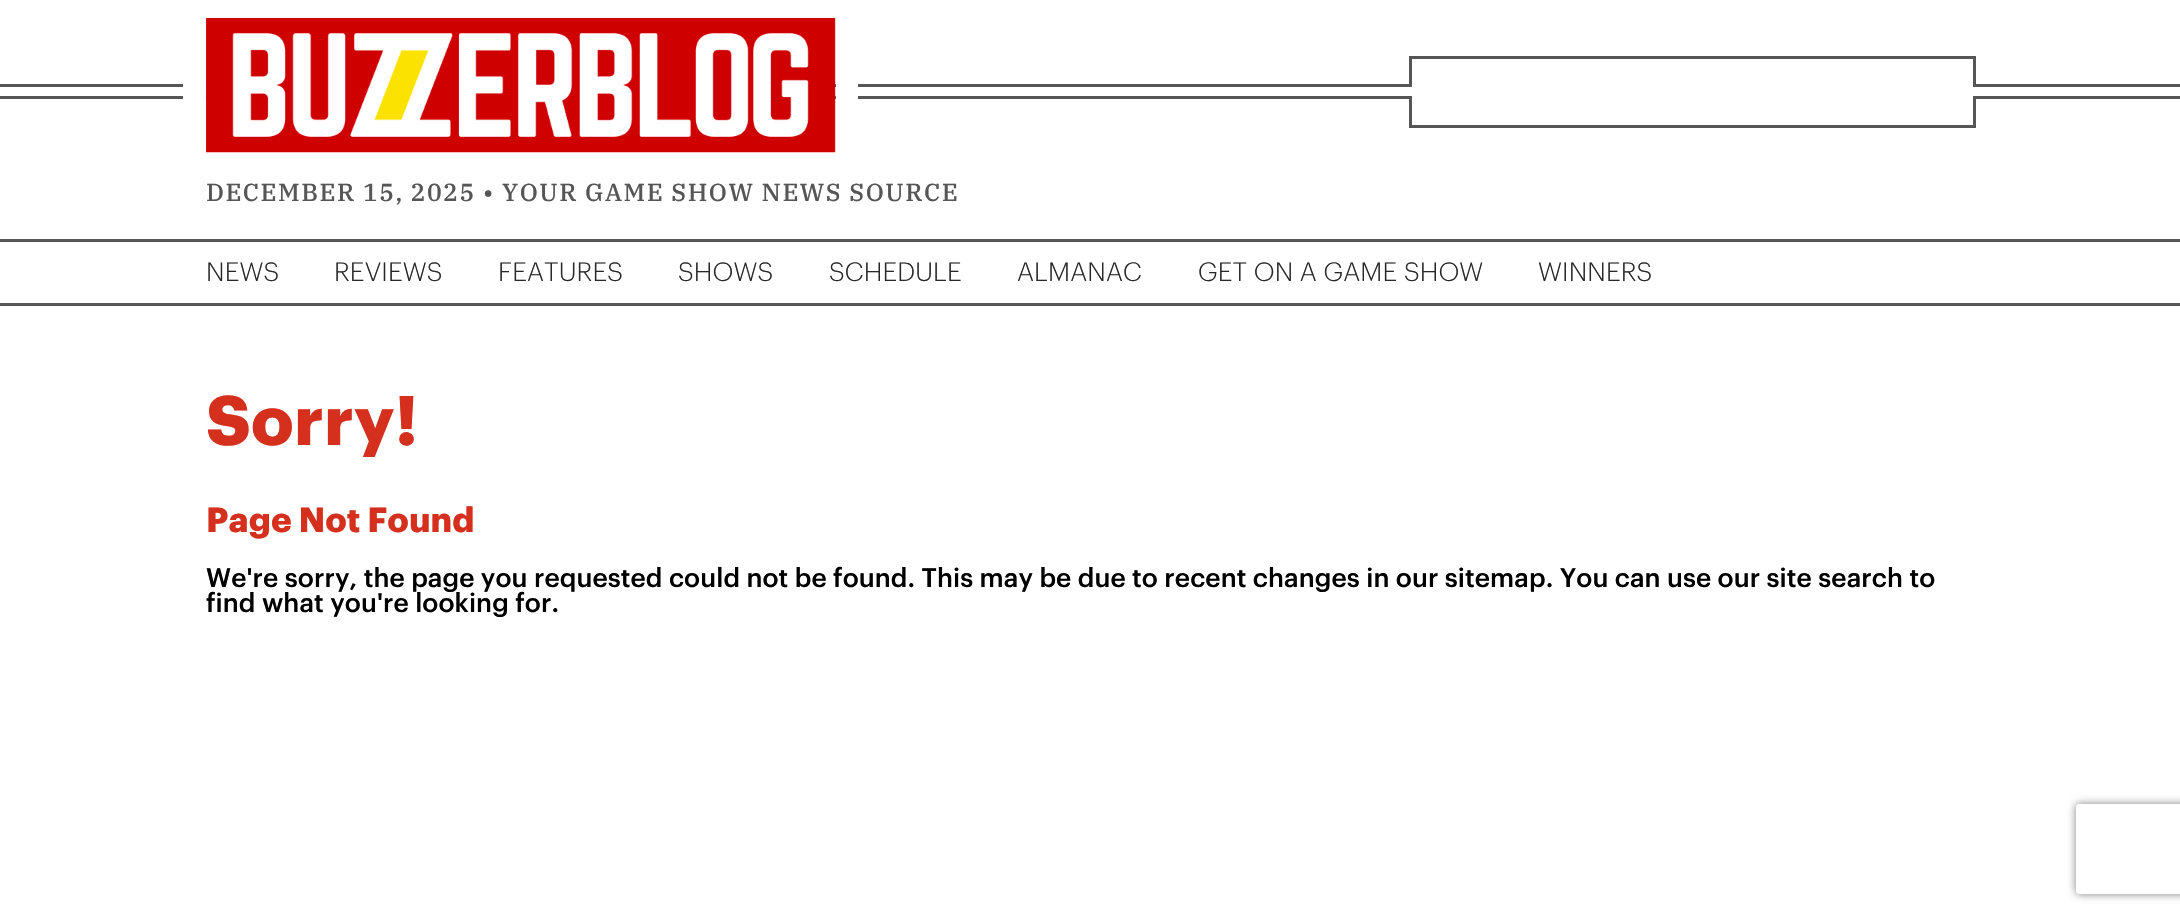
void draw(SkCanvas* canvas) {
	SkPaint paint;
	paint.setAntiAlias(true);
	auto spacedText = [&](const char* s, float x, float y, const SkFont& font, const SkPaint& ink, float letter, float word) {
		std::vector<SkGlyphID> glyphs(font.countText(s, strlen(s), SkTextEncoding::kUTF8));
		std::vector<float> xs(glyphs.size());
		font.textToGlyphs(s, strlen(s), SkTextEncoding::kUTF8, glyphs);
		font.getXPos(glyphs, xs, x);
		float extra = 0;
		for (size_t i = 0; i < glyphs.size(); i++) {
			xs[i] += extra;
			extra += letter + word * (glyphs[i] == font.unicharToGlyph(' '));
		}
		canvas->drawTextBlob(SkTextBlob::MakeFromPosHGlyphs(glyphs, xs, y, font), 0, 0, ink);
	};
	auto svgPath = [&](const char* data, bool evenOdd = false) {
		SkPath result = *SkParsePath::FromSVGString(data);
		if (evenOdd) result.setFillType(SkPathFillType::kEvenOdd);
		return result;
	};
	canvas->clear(0xffffffff);
	paint.setColor(0xff565656);
	canvas->drawRect(SkRect::MakeXYWH(0, 84, 2180, 3), paint);
	canvas->drawRect(SkRect::MakeXYWH(0, 96, 2180, 3), paint);
	paint.setColor(0xffffffff);
	canvas->drawRect(SkRect::MakeXYWH(1412, 84, 561, 15), paint);
	paint.setStroke(true);
	paint.setStrokeWidth(3);
	paint.setColor(0xff565656);
	canvas->drawRect(SkRect::MakeXYWH(1410.5, 57.5, 564, 69), paint);
	paint.setStroke(false);
	paint.setColor(0xffffffff);
	canvas->drawRect(SkRect::MakeXYWH(1409, 87, 3, 9), paint);
	canvas->drawRect(SkRect::MakeXYWH(1973, 87, 3, 9), paint);
	canvas->drawRect(SkRect::MakeXYWH(183, 84, 23, 15), paint);
	canvas->drawImageRect(SkImages::DeferredFromEncodedData(SkData::MakeFromFileName("img1.png")), SkRect::MakeXYWH(206, 18, 630, 135), SkSamplingOptions());
	canvas->drawRect(SkRect::MakeXYWH(836, 84, 22, 15), paint);
	SkFont f1(fontMgr->matchFamilyStyle("IBM Plex Serif", SkFontStyle(500, SkFontStyle::kNormal_Width, SkFontStyle::kUpright_Slant)), 24.6);
	f1.setSubpixel(true);
	paint.setColor(0xff565656);
	spacedText("DECEMBER 15, 2025 • YOUR GAME SHOW NEWS SOURCE", 206, 201, f1, paint, 1.5, 0);
	canvas->drawRect(SkRect::MakeXYWH(0, 239, 2180, 3), paint);
	SkFont f2(fontMgr->matchFamilyStyle("Graphik", SkFontStyle(300, SkFontStyle::kNormal_Width, SkFontStyle::kUpright_Slant)), 26);
	f2.setSubpixel(true);
	paint.setColor(0xff282828);
	canvas->drawString("NEWS", 206, 281, f2, paint);
	canvas->drawString("REVIEWS", 334, 281, f2, paint);
	canvas->drawString("FEATURES", 498, 281, f2, paint);
	canvas->drawString("SHOWS", 678, 281, f2, paint);
	canvas->drawString("SCHEDULE", 829, 281, f2, paint);
	canvas->drawString("ALMANAC", 1017, 281, f2, paint);
	canvas->drawString("GET ON A GAME SHOW", 1198, 281, f2, paint);
	canvas->drawString("WINNERS", 1538, 281, f2, paint);
	paint.setColor(0xff565656);
	canvas->drawRect(SkRect::MakeXYWH(0, 303, 2180, 3), paint);
	SkFont f3(fontMgr->matchFamilyStyle("Graphik", SkFontStyle::Bold()), 68.5);
	f3.setSubpixel(true);
	paint.setColor(0xffd52f1e);
	canvas->drawString("Sorry!", 206, 445, f3, paint);
	SkFont f4(fontMgr->matchFamilyStyle("Graphik", SkFontStyle::Bold()), 34.25);
	f4.setSubpixel(true);
	canvas->drawString("Page Not Found", 206, 532, f4, paint);
	SkFont f5(fontMgr->matchFamilyStyle("Graphik", SkFontStyle(500, SkFontStyle::kNormal_Width, SkFontStyle::kUpright_Slant)), 26.22);
	f5.setSubpixel(true);
	paint.setColor(0xff000000);
	canvas->drawString("We're sorry, the page you requested could not be found. This may be due to recent changes in our sitemap. You can use our site search to", 206, 587, f5, paint);
	canvas->drawString("find what you're looking for.", 206, 612, f5, paint);
	canvas->save();
	canvas->clipPath(svgPath("M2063 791H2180V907H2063ZM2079 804H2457C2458.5 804 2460 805.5 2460 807V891C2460 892.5 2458.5 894 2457 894H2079C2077.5 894 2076 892.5 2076 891V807C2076 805.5 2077.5 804 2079 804Z", true), true);
	paint.setColor(0xff808080);
	paint.setMaskFilter(SkMaskFilter::MakeBlur(kNormal_SkBlurStyle, 4));
	canvas->drawRoundRect(SkRect::MakeXYWH(2076, 804, 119, 90), 3, 3, paint);
	paint.setMaskFilter(nullptr);
	canvas->restore();
}
